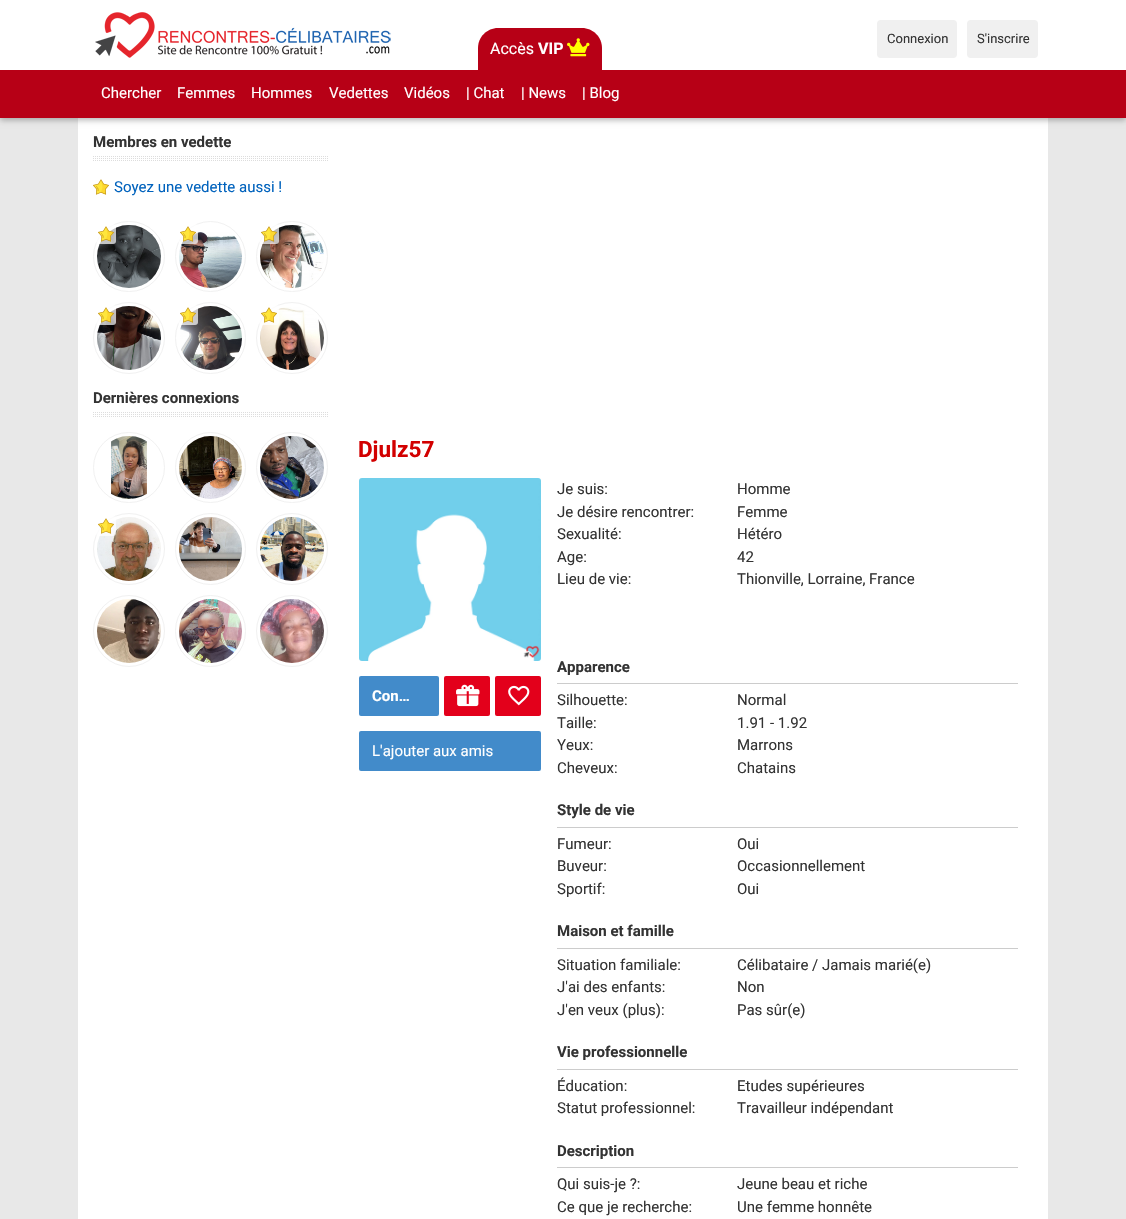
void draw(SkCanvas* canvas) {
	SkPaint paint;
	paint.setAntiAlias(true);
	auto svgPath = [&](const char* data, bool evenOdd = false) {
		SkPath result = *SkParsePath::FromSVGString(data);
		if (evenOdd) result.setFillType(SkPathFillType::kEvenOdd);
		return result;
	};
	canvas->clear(0xffe8e8e8);
	paint.setColor(0xffffffff);
	canvas->drawRect(SkRect::MakeXYWH(78, 118, 970, 1101), paint);
	paint.setColor(0x4d000000);
	paint.setMaskFilter(SkMaskFilter::MakeBlur(kNormal_SkBlurStyle, 3));
	canvas->drawRect(SkRect::MakeXYWH(0, 2, 1126, 118), paint);
	paint.setMaskFilter(nullptr);
	paint.setColor(0xffb70016);
	canvas->drawRect(SkRect::MakeXYWH(0, 70, 1126, 48), paint);
	paint.setColor(0xffffffff);
	canvas->drawRect(SkRect::MakeXYWH(0, 0, 1126, 70), paint);
	paint.setColor(0xfff0f0f0);
	canvas->drawRoundRect(SkRect::MakeXYWH(877, 20, 80, 38), 4, 4, paint);
	SkFont f1(fontMgr->matchFamilyStyle("Roboto", SkFontStyle::Normal()), 13);
	f1.setSubpixel(true);
	paint.setColor(0xff333333);
	canvas->drawString("Connexion", 887, 43, f1, paint);
	paint.setColor(0xfff0f0f0);
	canvas->drawRoundRect(SkRect::MakeXYWH(967, 20, 71, 38), 4, 4, paint);
	paint.setColor(0xff333333);
	canvas->drawString("S'inscrire", 977, 43, f1, paint);
	SkFont f2(fontMgr->matchFamilyStyle("Roboto", SkFontStyle::Normal()), 15);
	f2.setSubpixel(true);
	paint.setColor(0xffffffff);
	canvas->drawString("Chercher", 101, 98, f2, paint);
	canvas->drawString("Femmes", 177, 98, f2, paint);
	canvas->drawString("Hommes", 251, 98, f2, paint);
	canvas->drawString("Vedettes", 329, 98, f2, paint);
	canvas->drawString("Vidéos", 404, 98, f2, paint);
	canvas->drawString("| Chat", 466, 98, f2, paint);
	canvas->drawString("| News", 521, 98, f2, paint);
	canvas->drawString("| Blog", 582, 98, f2, paint);
	canvas->drawImageRect(SkImages::DeferredFromEncodedData(SkData::MakeFromFileName("img1.png")), SkRect::MakeXYWH(95, 12, 296, 46), SkSamplingOptions());
	paint.setColor(0xffb70016);
	canvas->drawPath(svgPath("M498 28H582C593 28 602 37 602 48V70H478V48C478 37 487 28 498 28Z"), paint);
	SkFont f3(fontMgr->matchFamilyStyle("Roboto", SkFontStyle::Normal()), 16);
	f3.setSubpixel(true);
	paint.setColor(0xffffffff);
	canvas->drawString("Accès", 490, 54, f3, paint);
	SkFont f4(fontMgr->matchFamilyStyle("Roboto", SkFontStyle::Bold()), 16);
	f4.setSubpixel(true);
	canvas->drawString("VIP", 538, 54, f4, paint);
	canvas->drawImageRect(SkImages::DeferredFromEncodedData(SkData::MakeFromFileName("img2.png")), SkRect::MakeXYWH(567, 38, 23, 19), SkSamplingOptions());
	canvas->drawImageRect(SkImages::DeferredFromEncodedData(SkData::MakeFromFileName("img3.png")), SkRect::MakeXYWH(93, 156, 235, 5), SkSamplingOptions());
	SkFont f5(fontMgr->matchFamilyStyle("Roboto", SkFontStyle::Bold()), 15);
	f5.setSubpixel(true);
	paint.setColor(0xff333333);
	canvas->drawString("Membres en vedette", 93, 147, f5, paint);
	canvas->drawImageRect(SkImages::DeferredFromEncodedData(SkData::MakeFromFileName("img4.png")), SkRect::MakeXYWH(93, 179, 16, 16), SkSamplingOptions());
	paint.setColor(0xff0062bd);
	canvas->drawString("Soyez une vedette aussi !", 114, 192, f2, paint);
	paint.setStroke(true);
	paint.setStrokeWidth(1);
	paint.setColor(0xfff1f1f1);
	canvas->drawRoundRect(SkRect::MakeXYWH(93.5, 221.5, 71, 70), 35, 35, paint);
	canvas->drawImageRect(SkImages::DeferredFromEncodedData(SkData::MakeFromFileName("img6.png")), SkRect::MakeXYWH(97, 225, 64, 63), SkSamplingOptions());
	paint.setStroke(false);
	paint.setColor(0xb3ffffff);
	canvas->drawRoundRect(SkRect::MakeXYWH(96, 224, 20, 20), 3, 3, paint);
	canvas->drawImageRect(SkImages::DeferredFromEncodedData(SkData::MakeFromFileName("img5.png")), SkRect::MakeXYWH(98, 226, 16, 16), SkSamplingOptions());
	paint.setStroke(true);
	paint.setColor(0xfff1f1f1);
	canvas->drawCircle(210.5, 256.5, 35, paint);
	canvas->drawImageRect(SkImages::DeferredFromEncodedData(SkData::MakeFromFileName("img8.png")), SkRect::MakeXYWH(179, 232, 63, 56), SkSamplingOptions());
	paint.setStroke(false);
	paint.setColor(0xb3ffffff);
	canvas->drawRoundRect(SkRect::MakeXYWH(178, 224, 20, 20), 3, 3, paint);
	canvas->drawImageRect(SkImages::DeferredFromEncodedData(SkData::MakeFromFileName("img7.png")), SkRect::MakeXYWH(180, 226, 16, 16), SkSamplingOptions());
	paint.setStroke(true);
	paint.setColor(0xfff1f1f1);
	canvas->drawRoundRect(SkRect::MakeXYWH(256.5, 221.5, 71, 70), 35, 35, paint);
	canvas->drawImageRect(SkImages::DeferredFromEncodedData(SkData::MakeFromFileName("img10.png")), SkRect::MakeXYWH(260, 225, 64, 63), SkSamplingOptions());
	paint.setStroke(false);
	paint.setColor(0xb3ffffff);
	canvas->drawRoundRect(SkRect::MakeXYWH(259, 224, 20, 20), 3, 3, paint);
	canvas->drawImageRect(SkImages::DeferredFromEncodedData(SkData::MakeFromFileName("img9.png")), SkRect::MakeXYWH(261, 226, 16, 16), SkSamplingOptions());
	paint.setStroke(true);
	paint.setColor(0xfff1f1f1);
	canvas->drawCircle(129, 338, 35.5, paint);
	canvas->drawImageRect(SkImages::DeferredFromEncodedData(SkData::MakeFromFileName("img12.png")), SkRect::MakeXYWH(97, 306, 64, 64), SkSamplingOptions());
	paint.setStroke(false);
	paint.setColor(0xb3ffffff);
	canvas->drawRoundRect(SkRect::MakeXYWH(96, 305, 20, 20), 3, 3, paint);
	canvas->drawImageRect(SkImages::DeferredFromEncodedData(SkData::MakeFromFileName("img11.png")), SkRect::MakeXYWH(98, 307, 16, 16), SkSamplingOptions());
	paint.setStroke(true);
	paint.setColor(0xfff1f1f1);
	canvas->drawRoundRect(SkRect::MakeXYWH(175.5, 302.5, 70, 71), 35, 35, paint);
	canvas->drawImageRect(SkImages::DeferredFromEncodedData(SkData::MakeFromFileName("img14.png")), SkRect::MakeXYWH(180, 306, 62, 64), SkSamplingOptions());
	paint.setStroke(false);
	paint.setColor(0xb3ffffff);
	canvas->drawRoundRect(SkRect::MakeXYWH(178, 305, 20, 20), 3, 3, paint);
	canvas->drawImageRect(SkImages::DeferredFromEncodedData(SkData::MakeFromFileName("img13.png")), SkRect::MakeXYWH(180, 307, 16, 16), SkSamplingOptions());
	paint.setStroke(true);
	paint.setColor(0xfff1f1f1);
	canvas->drawCircle(292, 338, 35.5, paint);
	canvas->drawImageRect(SkImages::DeferredFromEncodedData(SkData::MakeFromFileName("img16.png")), SkRect::MakeXYWH(260, 307, 64, 63), SkSamplingOptions());
	paint.setStroke(false);
	paint.setColor(0xb3ffffff);
	canvas->drawRoundRect(SkRect::MakeXYWH(259, 305, 20, 20), 3, 3, paint);
	canvas->drawImageRect(SkImages::DeferredFromEncodedData(SkData::MakeFromFileName("img15.png")), SkRect::MakeXYWH(261, 307, 16, 16), SkSamplingOptions());
	canvas->drawImageRect(SkImages::DeferredFromEncodedData(SkData::MakeFromFileName("img3.png")), SkRect::MakeXYWH(93, 412, 235, 5), SkSamplingOptions());
	paint.setColor(0xff333333);
	canvas->drawString("Dernières connexions", 93, 403, f5, paint);
	paint.setStroke(true);
	paint.setColor(0xfff1f1f1);
	canvas->drawRoundRect(SkRect::MakeXYWH(93.5, 432.5, 71, 70), 35, 35, paint);
	canvas->drawImageRect(SkImages::DeferredFromEncodedData(SkData::MakeFromFileName("img17.png")), SkRect::MakeXYWH(111, 436, 36, 63), SkSamplingOptions());
	canvas->drawCircle(210.5, 467.5, 35, paint);
	canvas->drawImageRect(SkImages::DeferredFromEncodedData(SkData::MakeFromFileName("img18.png")), SkRect::MakeXYWH(179, 436, 63, 63), SkSamplingOptions());
	canvas->drawRoundRect(SkRect::MakeXYWH(256.5, 432.5, 71, 70), 35, 35, paint);
	canvas->drawImageRect(SkImages::DeferredFromEncodedData(SkData::MakeFromFileName("img19.png")), SkRect::MakeXYWH(260, 436, 64, 63), SkSamplingOptions());
	canvas->drawCircle(129, 549, 35.5, paint);
	canvas->drawImageRect(SkImages::DeferredFromEncodedData(SkData::MakeFromFileName("img21.png")), SkRect::MakeXYWH(97, 517, 64, 64), SkSamplingOptions());
	paint.setStroke(false);
	paint.setColor(0xb3ffffff);
	canvas->drawRoundRect(SkRect::MakeXYWH(96, 516, 20, 20), 3, 3, paint);
	canvas->drawImageRect(SkImages::DeferredFromEncodedData(SkData::MakeFromFileName("img20.png")), SkRect::MakeXYWH(98, 518, 16, 16), SkSamplingOptions());
	paint.setStroke(true);
	paint.setColor(0xfff1f1f1);
	canvas->drawRoundRect(SkRect::MakeXYWH(175.5, 513.5, 70, 71), 35, 35, paint);
	canvas->drawImageRect(SkImages::DeferredFromEncodedData(SkData::MakeFromFileName("img22.png")), SkRect::MakeXYWH(179, 517, 63, 64), SkSamplingOptions());
	canvas->drawCircle(292, 549, 35.5, paint);
	canvas->drawImageRect(SkImages::DeferredFromEncodedData(SkData::MakeFromFileName("img23.png")), SkRect::MakeXYWH(260, 517, 64, 64), SkSamplingOptions());
	canvas->drawCircle(129, 631, 35.5, paint);
	canvas->drawImageRect(SkImages::DeferredFromEncodedData(SkData::MakeFromFileName("img24.png")), SkRect::MakeXYWH(97, 599, 64, 64), SkSamplingOptions());
	canvas->drawRoundRect(SkRect::MakeXYWH(175.5, 595.5, 70, 71), 35, 35, paint);
	canvas->drawImageRect(SkImages::DeferredFromEncodedData(SkData::MakeFromFileName("img25.png")), SkRect::MakeXYWH(179, 599, 63, 64), SkSamplingOptions());
	canvas->drawCircle(292, 631, 35.5, paint);
	canvas->drawImageRect(SkImages::DeferredFromEncodedData(SkData::MakeFromFileName("img26.png")), SkRect::MakeXYWH(260, 599, 64, 64), SkSamplingOptions());
	SkFont f6(fontMgr->matchFamilyStyle("Roboto", SkFontStyle::Bold()), 22.5);
	f6.setSubpixel(true);
	paint.setStroke(false);
	paint.setColor(0xffd20000);
	canvas->drawString("Djulz57", 358, 457, f6, paint);
	canvas->drawImageRect(SkImages::DeferredFromEncodedData(SkData::MakeFromFileName("img27.png")), SkRect::MakeXYWH(359, 478, 182, 183), SkSamplingOptions());
	paint.setColor(0xff428bca);
	canvas->drawRoundRect(SkRect::MakeXYWH(359, 676, 80, 40), 2, 2, paint);
	paint.setColor(0xffffffff);
	canvas->drawString("Con…", 372, 701, f5, paint);
	paint.setColor(0xffe3001b);
	canvas->drawRoundRect(SkRect::MakeXYWH(444, 676, 46, 40), 2, 2, paint);
	canvas->drawImageRect(SkImages::DeferredFromEncodedData(SkData::MakeFromFileName("img28.png")), SkRect::MakeXYWH(456, 684, 24, 23), SkSamplingOptions());
	canvas->drawRoundRect(SkRect::MakeXYWH(495, 676, 46, 40), 2, 2, paint);
	canvas->drawImageRect(SkImages::DeferredFromEncodedData(SkData::MakeFromFileName("img29.png")), SkRect::MakeXYWH(508, 685, 22, 21), SkSamplingOptions());
	paint.setColor(0xff428bca);
	canvas->drawRoundRect(SkRect::MakeXYWH(359, 731, 182, 40), 2, 2, paint);
	paint.setColor(0xffffffff);
	canvas->drawString("L'ajouter aux amis", 372, 756, f2, paint);
	paint.setColor(0xff333333);
	canvas->drawString("Je suis:", 557, 494, f2, paint);
	canvas->drawString("Homme", 737, 494, f2, paint);
	canvas->drawString("Je désire rencontrer:", 557, 517, f2, paint);
	canvas->drawString("Femme", 737, 517, f2, paint);
	canvas->drawString("Sexualité:", 557, 539, f2, paint);
	canvas->drawString("Hétéro", 737, 539, f2, paint);
	canvas->drawString("Age:", 557, 562, f2, paint);
	canvas->drawString("42", 737, 562, f2, paint);
	canvas->drawString("Lieu de vie:", 557, 584, f2, paint);
	canvas->drawString("Thionville, Lorraine, France", 737, 584, f2, paint);
	paint.setColor(0xffcccccc);
	canvas->drawRect(SkRect::MakeXYWH(557, 683, 461, 1), paint);
	paint.setColor(0xff333333);
	canvas->drawString("Apparence", 557, 672, f5, paint);
	canvas->drawString("Silhouette:", 557, 705, f2, paint);
	canvas->drawString("Normal", 737, 705, f2, paint);
	canvas->drawString("Taille:", 557, 728, f2, paint);
	canvas->drawString("1.91 - 1.92", 737, 728, f2, paint);
	canvas->drawString("Yeux:", 557, 750, f2, paint);
	canvas->drawString("Marrons", 737, 750, f2, paint);
	canvas->drawString("Cheveux:", 557, 773, f2, paint);
	canvas->drawString("Chatains", 737, 773, f2, paint);
	paint.setColor(0xffcccccc);
	canvas->drawRect(SkRect::MakeXYWH(557, 827, 461, 1), paint);
	paint.setColor(0xff333333);
	canvas->drawString("Style de vie", 557, 815, f5, paint);
	canvas->drawString("Fumeur:", 557, 849, f2, paint);
	canvas->drawString("Oui", 737, 849, f2, paint);
	canvas->drawString("Buveur:", 557, 871, f2, paint);
	canvas->drawString("Occasionnellement", 737, 871, f2, paint);
	canvas->drawString("Sportif:", 557, 894, f2, paint);
	canvas->drawString("Oui", 737, 894, f2, paint);
	paint.setColor(0xffcccccc);
	canvas->drawRect(SkRect::MakeXYWH(557, 948, 461, 1), paint);
	paint.setColor(0xff333333);
	canvas->drawString("Maison et famille", 557, 936, f5, paint);
	canvas->drawString("Situation familiale:", 557, 970, f2, paint);
	canvas->drawString("Célibataire / Jamais marié(e)", 737, 970, f2, paint);
	canvas->drawString("J'ai des enfants:", 557, 992, f2, paint);
	canvas->drawString("Non", 737, 992, f2, paint);
	canvas->drawString("J'en veux (plus):", 557, 1015, f2, paint);
	canvas->drawString("Pas sûr(e)", 737, 1015, f2, paint);
	paint.setColor(0xffcccccc);
	canvas->drawRect(SkRect::MakeXYWH(557, 1069, 461, 1), paint);
	paint.setColor(0xff333333);
	canvas->drawString("Vie professionnelle", 557, 1057, f5, paint);
	canvas->drawString("Éducation:", 557, 1091, f2, paint);
	canvas->drawString("Etudes supérieures", 737, 1091, f2, paint);
	canvas->drawString("Statut professionnel:", 557, 1113, f2, paint);
	canvas->drawString("Travailleur indépendant", 737, 1113, f2, paint);
	paint.setColor(0xffcccccc);
	canvas->drawRect(SkRect::MakeXYWH(557, 1167, 461, 1), paint);
	paint.setColor(0xff333333);
	canvas->drawString("Description", 557, 1156, f5, paint);
	canvas->drawString("Qui suis-je ?:", 557, 1189, f2, paint);
	canvas->drawString("Jeune beau et riche", 737, 1189, f2, paint);
	canvas->drawString("Ce que je recherche:", 557, 1212, f2, paint);
	canvas->drawString("Une femme honnête", 737, 1212, f2, paint);
}
